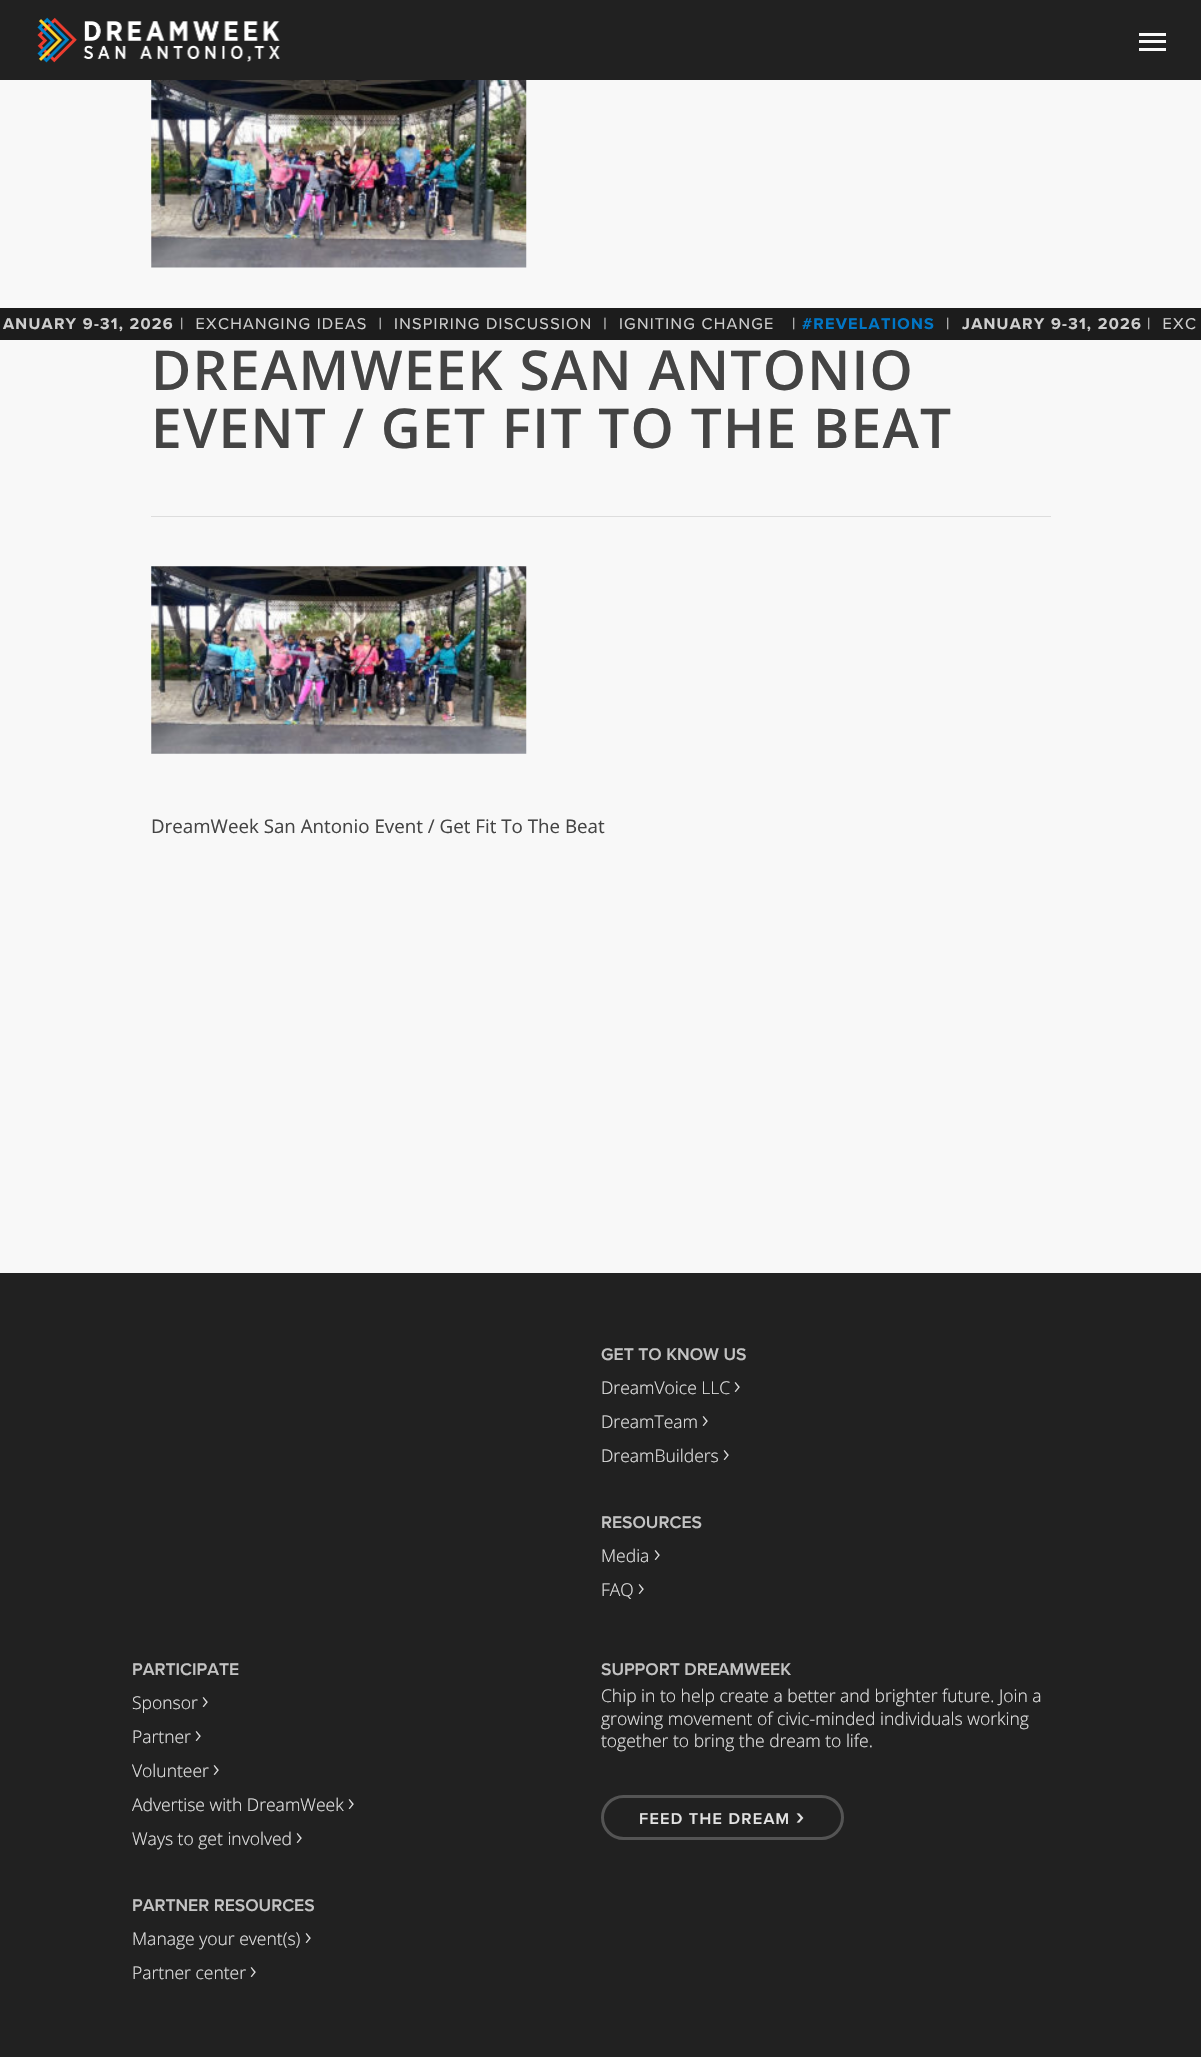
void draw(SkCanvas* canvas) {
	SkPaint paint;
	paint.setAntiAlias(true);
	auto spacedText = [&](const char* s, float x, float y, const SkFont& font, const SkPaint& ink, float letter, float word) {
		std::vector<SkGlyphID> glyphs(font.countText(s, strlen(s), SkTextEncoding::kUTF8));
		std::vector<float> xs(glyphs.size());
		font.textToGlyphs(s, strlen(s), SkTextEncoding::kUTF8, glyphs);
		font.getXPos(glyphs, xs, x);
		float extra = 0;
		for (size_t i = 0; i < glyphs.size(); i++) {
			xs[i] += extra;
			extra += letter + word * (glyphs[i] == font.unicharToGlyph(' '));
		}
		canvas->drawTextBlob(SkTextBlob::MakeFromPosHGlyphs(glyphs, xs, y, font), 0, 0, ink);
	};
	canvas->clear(0xfff8f8f8);
	paint.setColor(0xff212121);
	canvas->drawRect(SkRect::MakeXYWH(0, 0, 1201, 80), paint);
	canvas->drawImageRect(SkImages::DeferredFromEncodedData(SkData::MakeFromFileName("img1.png")), SkRect::MakeXYWH(37, 17, 243, 46), SkSamplingOptions());
	paint.setColor(0xfff9f9f9);
	canvas->drawRect(SkRect::MakeXYWH(1139, 33, 27, 3), paint);
	canvas->drawRect(SkRect::MakeXYWH(1139, 48, 27, 3), paint);
	canvas->drawRect(SkRect::MakeXYWH(1139, 40, 27, 3), paint);
	canvas->drawImageRect(SkImages::DeferredFromEncodedData(SkData::MakeFromFileName("img2.png")), SkRect::MakeXYWH(151, 80, 376, 188), SkSamplingOptions());
	paint.setColor(0xff1c1c1c);
	canvas->drawRect(SkRect::MakeXYWH(0, 308, 1201, 32), paint);
	SkFont f1(fontMgr->matchFamilyStyle("Proxima Nova", SkFontStyle::Bold()), 16.25);
	f1.setSubpixel(true);
	paint.setColor(0xffcecece);
	spacedText("ANUARY 9-31, 2026", 3, 329, f1, paint, 1.25, 0);
	SkFont f2(fontMgr->matchFamilyStyle("Proxima Nova", SkFontStyle::Normal()), 16.25);
	f2.setSubpixel(true);
	spacedText("|  EXCHANGING IDEAS  |  INSPIRING DISCUSSION  |  IGNITING CHANGE", 180, 329, f2, paint, 1.25, 0);
	spacedText("|", 792, 329, f2, paint, 1.25, 0);
	paint.setColor(0xff0076c6);
	spacedText("#REVELATIONS", 802, 329, f1, paint, 1.25, 0);
	paint.setColor(0xffcecece);
	spacedText("|", 946, 329, f2, paint, 1.25, 0);
	spacedText("JANUARY 9-31, 2026", 962, 329, f1, paint, 1.25, 0);
	spacedText("|  EXC", 1147, 329, f2, paint, 1.25, 0);
	paint.setColor(0xffdddddd);
	canvas->drawRect(SkRect::MakeXYWH(151, 516, 900, 1), paint);
	SkFont f3(fontMgr->matchFamilyStyle("Open Sans", SkFontStyle(600, SkFontStyle::kNormal_Width, SkFontStyle::kUpright_Slant)), 55);
	f3.setSubpixel(true);
	paint.setColor(0xff444444);
	spacedText("DREAMWEEK SAN ANTONIO", 151, 390, f3, paint, 1.25, 0);
	spacedText("EVENT / GET FIT TO THE BEAT", 151, 448, f3, paint, 1.25, 0);
	canvas->drawImageRect(SkImages::DeferredFromEncodedData(SkData::MakeFromFileName("img3.png")), SkRect::MakeXYWH(151, 566, 376, 188), SkSamplingOptions());
	SkFont f4(fontMgr->matchFamilyStyle("Open Sans", SkFontStyle::Normal()), 18.75);
	f4.setSubpixel(true);
	canvas->drawString("DreamWeek San Antonio Event / Get Fit To The Beat", 151, 833, f4, paint);
	paint.setColor(0xff212121);
	canvas->drawRect(SkRect::MakeXYWH(0, 1273, 1201, 784), paint);
	SkFont f5(fontMgr->matchFamilyStyle("Proxima Nova", SkFontStyle(600, SkFontStyle::kNormal_Width, SkFontStyle::kUpright_Slant)), 17.5);
	f5.setSubpixel(true);
	paint.setColor(0xffc3c3c3);
	canvas->drawString("GET TO KNOW US", 601, 1360, f5, paint);
	SkFont f6(fontMgr->matchFamilyStyle("Open Sans", SkFontStyle(300, SkFontStyle::kNormal_Width, SkFontStyle::kUpright_Slant)), 17.5);
	f6.setSubpixel(true);
	paint.setColor(0xffe3e3e3);
	canvas->drawString("DreamVoice LLC", 601, 1394, f6, paint);
	SkFont f7(fontMgr->matchFamilyStyle("Open Sans", SkFontStyle(300, SkFontStyle::kNormal_Width, SkFontStyle::kUpright_Slant)), 25);
	f7.setSubpixel(true);
	canvas->drawString("›", 734, 1394, f7, paint);
	canvas->drawString("DreamTeam", 601, 1428, f6, paint);
	canvas->drawString("›", 702, 1428, f7, paint);
	canvas->drawString("DreamBuilders", 601, 1462, f6, paint);
	canvas->drawString("›", 723, 1462, f7, paint);
	paint.setColor(0xffc3c3c3);
	canvas->drawString("RESOURCES", 601, 1528, f5, paint);
	paint.setColor(0xffe3e3e3);
	canvas->drawString("Media", 601, 1562, f6, paint);
	canvas->drawString("›", 654, 1562, f7, paint);
	canvas->drawString("FAQ", 601, 1596, f6, paint);
	canvas->drawString("›", 638, 1596, f7, paint);
	paint.setColor(0xffc3c3c3);
	canvas->drawString("PARTICIPATE", 132, 1675, f5, paint);
	paint.setColor(0xffe3e3e3);
	canvas->drawString("Sponsor", 132, 1709, f6, paint);
	canvas->drawString("›", 202, 1709, f7, paint);
	canvas->drawString("Partner", 132, 1743, f6, paint);
	canvas->drawString("›", 195, 1743, f7, paint);
	canvas->drawString("Volunteer", 132, 1777, f6, paint);
	canvas->drawString("›", 213, 1777, f7, paint);
	canvas->drawString("Advertise with DreamWeek", 132, 1811, f6, paint);
	canvas->drawString("›", 348, 1811, f7, paint);
	canvas->drawString("Ways to get involved", 132, 1845, f6, paint);
	canvas->drawString("›", 296, 1845, f7, paint);
	paint.setColor(0xffc3c3c3);
	canvas->drawString("PARTNER RESOURCES", 132, 1911, f5, paint);
	paint.setColor(0xffe3e3e3);
	canvas->drawString("Manage your event(s)", 132, 1945, f6, paint);
	canvas->drawString("›", 305, 1945, f7, paint);
	canvas->drawString("Partner center", 132, 1979, f6, paint);
	canvas->drawString("›", 250, 1979, f7, paint);
	paint.setColor(0xffc3c3c3);
	canvas->drawString("SUPPORT DREAMWEEK", 601, 1675, f5, paint);
	paint.setColor(0xffe3e3e3);
	canvas->drawString("Chip in to help create a better and brighter future. Join a", 601, 1702, f6, paint);
	canvas->drawString("growing movement of civic-minded individuals working", 601, 1725, f6, paint);
	canvas->drawString("together to bring the dream to life.", 601, 1747, f6, paint);
	paint.setStroke(true);
	paint.setStrokeWidth(3);
	paint.setColor(0xff545454);
	canvas->drawRoundRect(SkRect::MakeXYWH(602.5, 1796.5, 240, 42), 21, 21, paint);
	SkFont f8(fontMgr->matchFamilyStyle("Proxima Nova", SkFontStyle(600, SkFontStyle::kNormal_Width, SkFontStyle::kUpright_Slant)), 16.25);
	f8.setSubpixel(true);
	paint.setStroke(false);
	paint.setColor(0xffe3e3e3);
	spacedText("FEED THE DREAM", 639, 1824, f8, paint, 1.25, 0);
	SkFont f9(fontMgr->matchFamilyStyle("Proxima Nova", SkFontStyle(600, SkFontStyle::kNormal_Width, SkFontStyle::kUpright_Slant)), 25);
	f9.setSubpixel(true);
	spacedText("›", 796, 1824, f9, paint, 1.25, 0);
}
